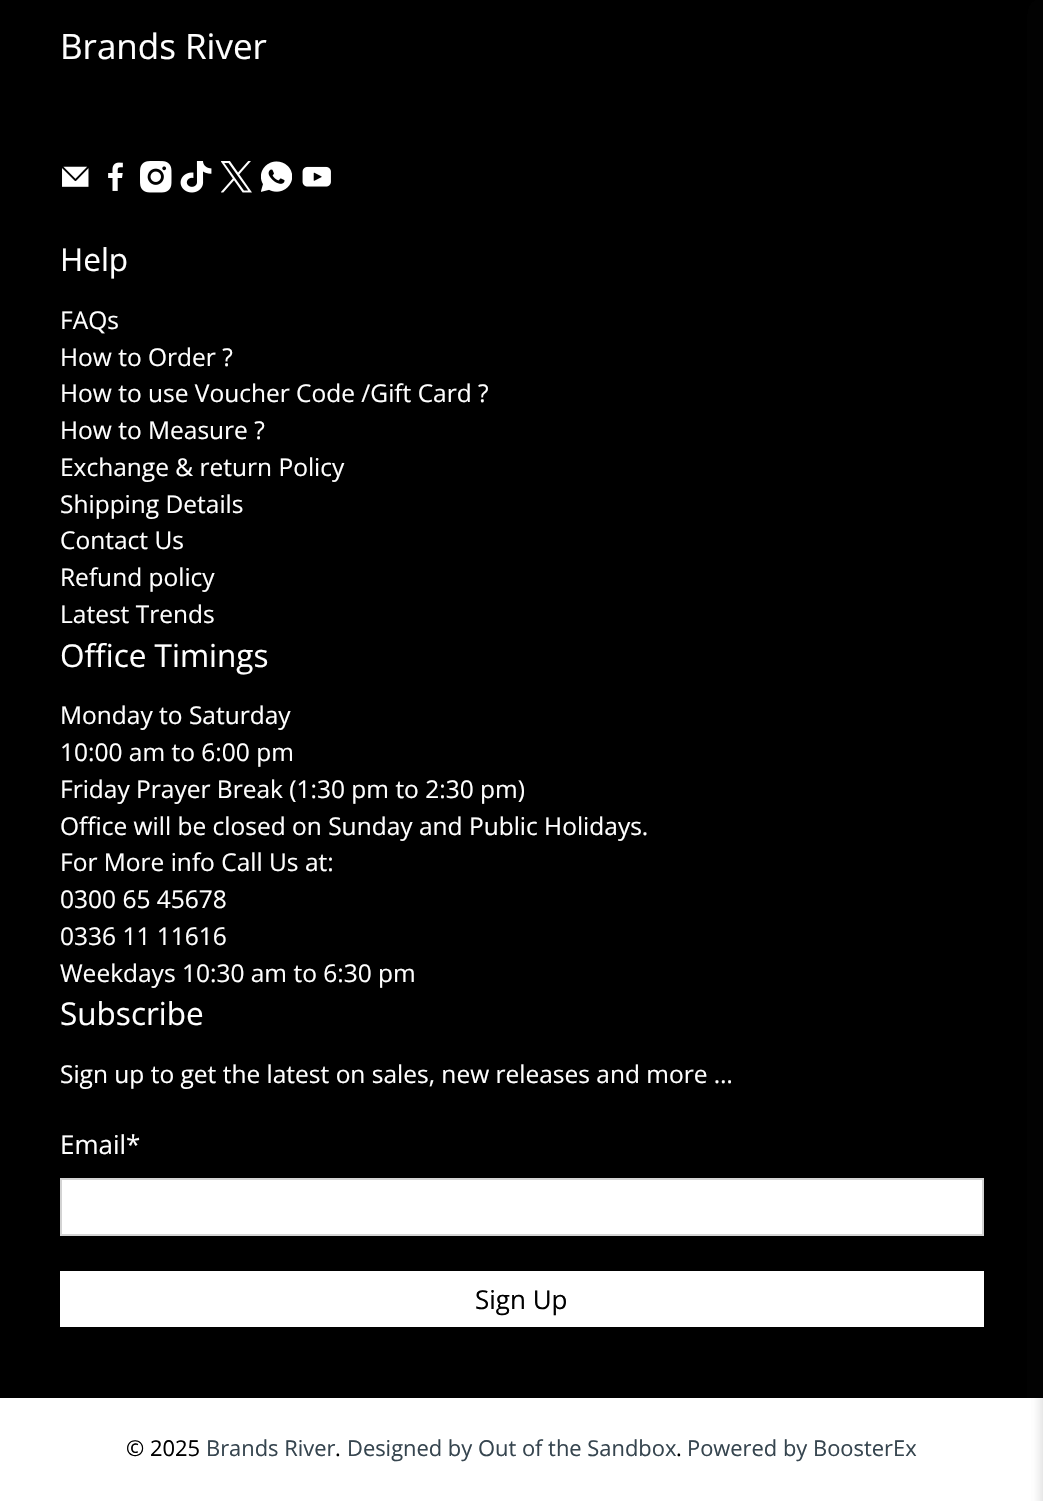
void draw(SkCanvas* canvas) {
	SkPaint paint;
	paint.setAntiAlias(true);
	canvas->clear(0xffffffff);
	paint.setColor(0xff000000);
	canvas->drawRect(SkRect::MakeXYWH(0, 0, 1043, 1398), paint);
	paint.setColor(0x1a0a0a0a);
	paint.setMaskFilter(SkMaskFilter::MakeBlur(kNormal_SkBlurStyle, 7));
	canvas->drawRect(SkRect::MakeXYWH(1043, 14, 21, 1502), paint);
	paint.setMaskFilter(nullptr);
	SkFont f1(fontMgr->matchFamilyStyle("Open Sans", SkFontStyle::Normal()), 35);
	f1.setSubpixel(true);
	paint.setColor(0xffffffff);
	canvas->drawString("Brands River", 60, 59, f1, paint);
	canvas->drawImageRect(SkImages::DeferredFromEncodedData(SkData::MakeFromFileName("img1.png")), SkRect::MakeXYWH(62, 166, 27, 21), SkSamplingOptions());
	canvas->drawImageRect(SkImages::DeferredFromEncodedData(SkData::MakeFromFileName("img2.png")), SkRect::MakeXYWH(108, 162, 15, 29), SkSamplingOptions());
	canvas->drawImageRect(SkImages::DeferredFromEncodedData(SkData::MakeFromFileName("img3.png")), SkRect::MakeXYWH(140, 161, 32, 32), SkSamplingOptions());
	canvas->drawImageRect(SkImages::DeferredFromEncodedData(SkData::MakeFromFileName("img4.png")), SkRect::MakeXYWH(180, 161, 32, 32), SkSamplingOptions());
	canvas->drawImageRect(SkImages::DeferredFromEncodedData(SkData::MakeFromFileName("img5.png")), SkRect::MakeXYWH(221, 161, 31, 32), SkSamplingOptions());
	canvas->drawImageRect(SkImages::DeferredFromEncodedData(SkData::MakeFromFileName("img6.png")), SkRect::MakeXYWH(261, 161, 31, 31), SkSamplingOptions());
	canvas->drawImageRect(SkImages::DeferredFromEncodedData(SkData::MakeFromFileName("img7.png")), SkRect::MakeXYWH(302, 166, 29, 21), SkSamplingOptions());
	SkFont f2(fontMgr->matchFamilyStyle("Open Sans", SkFontStyle::Normal()), 31.5);
	f2.setSubpixel(true);
	canvas->drawString("Help", 60, 271, f2, paint);
	SkFont f3(fontMgr->matchFamilyStyle("Open Sans", SkFontStyle::Normal()), 24.5);
	f3.setSubpixel(true);
	canvas->drawString("FAQs", 60, 329, f3, paint);
	canvas->drawString("How to Order ?", 60, 366, f3, paint);
	canvas->drawString("How to use Voucher Code /Gift Card ?", 60, 402, f3, paint);
	canvas->drawString("How to Measure ?", 60, 439, f3, paint);
	canvas->drawString("Exchange & return Policy", 60, 476, f3, paint);
	canvas->drawString("Shipping Details", 60, 513, f3, paint);
	canvas->drawString("Contact Us", 60, 549, f3, paint);
	canvas->drawString("Refund policy", 60, 586, f3, paint);
	canvas->drawString("Latest Trends", 60, 623, f3, paint);
	canvas->drawString("Office Timings", 60, 667, f2, paint);
	canvas->drawString("Monday to Saturday", 60, 724, f3, paint);
	canvas->drawString("10:00 am to 6:00 pm", 60, 761, f3, paint);
	canvas->drawString("Friday Prayer Break (1:30 pm to 2:30 pm)", 60, 798, f3, paint);
	canvas->drawString("Office will be closed on Sunday and Public Holidays.", 60, 835, f3, paint);
	canvas->drawString("For More info Call Us at:", 60, 871, f3, paint);
	canvas->drawString("0300 65 45678", 60, 908, f3, paint);
	canvas->drawString("0336 11 11616", 60, 945, f3, paint);
	canvas->drawString("Weekdays 10:30 am to 6:30 pm", 60, 982, f3, paint);
	canvas->drawString("Subscribe", 60, 1025, f2, paint);
	canvas->drawString("Sign up to get the latest on sales, new releases and more …", 60, 1083, f3, paint);
	SkFont f4(fontMgr->matchFamilyStyle("Open Sans", SkFontStyle::Normal()), 26);
	f4.setSubpixel(true);
	canvas->drawString("Email*", 60, 1154, f4, paint);
	canvas->drawRect(SkRect::MakeXYWH(61, 1179, 922, 56), paint);
	paint.setStroke(true);
	paint.setStrokeWidth(2);
	paint.setColor(0xffd3d3d3);
	canvas->drawRect(SkRect::MakeXYWH(61, 1179, 922, 56), paint);
	paint.setStroke(false);
	paint.setColor(0xffffffff);
	canvas->drawRect(SkRect::MakeXYWH(60, 1271, 924, 56), paint);
	paint.setColor(0xff000000);
	canvas->drawString("Sign Up", 475, 1309, f4, paint);
	SkFont f5(fontMgr->matchFamilyStyle("Open Sans", SkFontStyle::Normal()), 21.9);
	f5.setSubpixel(true);
	canvas->drawString("© 2025", 126, 1456, f5, paint);
	paint.setColor(0xff36454f);
	canvas->drawString("Brands River", 206, 1456, f5, paint);
	paint.setColor(0xff000000);
	canvas->drawString(".", 335, 1456, f5, paint);
	paint.setColor(0xff36454f);
	canvas->drawString("Designed by Out of the Sandbox", 347, 1456, f5, paint);
	paint.setColor(0xff000000);
	canvas->drawString(".", 676, 1456, f5, paint);
	paint.setColor(0xff36454f);
	canvas->drawString("Powered by BoosterEx", 687, 1456, f5, paint);
	paint.setColor(0x1a0a0a0a);
	paint.setMaskFilter(SkMaskFilter::MakeBlur(kNormal_SkBlurStyle, 7));
	canvas->drawRect(SkRect::MakeXYWH(1043, 14, 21, 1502), paint);
	paint.setMaskFilter(nullptr);
}
